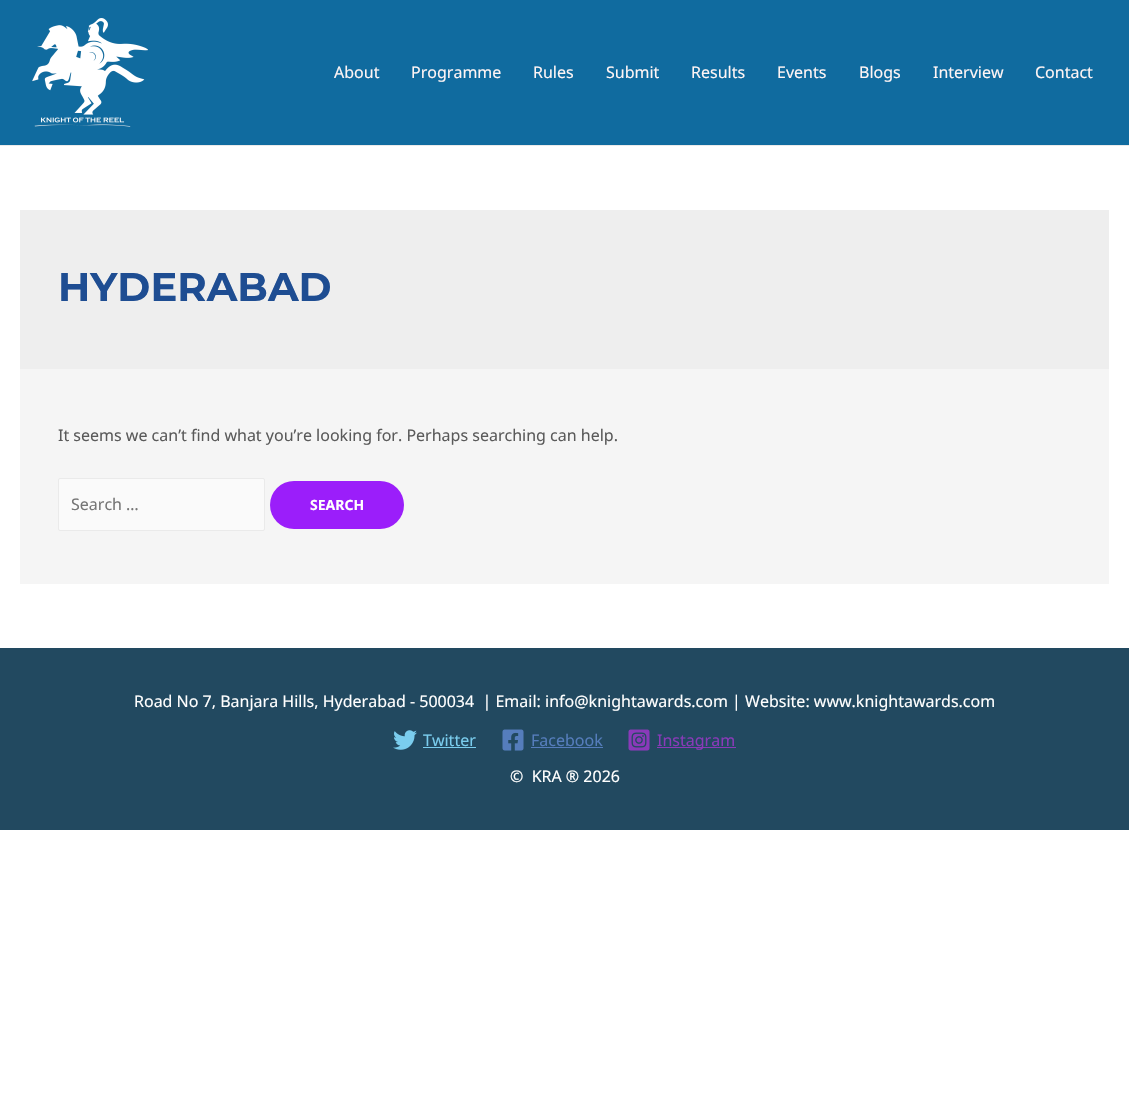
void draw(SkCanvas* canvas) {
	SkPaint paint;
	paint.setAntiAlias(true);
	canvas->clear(0xffffffff);
	paint.setColor(0xff106b9f);
	canvas->drawRect(SkRect::MakeXYWH(0, 0, 1129, 145), paint);
	paint.setColor(0xffeaeaea);
	canvas->drawRect(SkRect::MakeXYWH(0, 145, 1129, 1), paint);
	canvas->drawImageRect(SkImages::DeferredFromEncodedData(SkData::MakeFromFileName("img1.png")), SkRect::MakeXYWH(32, 18, 116, 109), SkSamplingOptions());
	SkFont f1(fontMgr->matchFamilyStyle("Noto Sans", SkFontStyle::Normal()), 16);
	f1.setSubpixel(true);
	paint.setColor(0xfffff5f5);
	canvas->drawString("About", 334, 78, f1, paint);
	canvas->drawString("Programme", 411, 78, f1, paint);
	canvas->drawString("Rules", 533, 78, f1, paint);
	canvas->drawString("Submit", 606, 78, f1, paint);
	canvas->drawString("Results", 691, 78, f1, paint);
	canvas->drawString("Events", 777, 78, f1, paint);
	canvas->drawString("Blogs", 859, 78, f1, paint);
	canvas->drawString("Interview", 933, 78, f1, paint);
	canvas->drawString("Contact", 1035, 78, f1, paint);
	paint.setColor(0xffeeeeee);
	canvas->drawRect(SkRect::MakeXYWH(20, 210, 1089, 159), paint);
	SkFont f2(fontMgr->matchFamilyStyle("Montserrat", SkFontStyle(100, SkFontStyle::kNormal_Width, SkFontStyle::kUpright_Slant)), 40);
	f2.setSubpixel(true);
	paint.setColor(0xff1e4d92);
	canvas->drawString("HYDERABAD", 58, 301, f2, paint);
	paint.setColor(0xfff5f5f5);
	canvas->drawRect(SkRect::MakeXYWH(20, 369, 1089, 215), paint);
	paint.setColor(0xff5a5a5a);
	canvas->drawString("It seems we can’t find what you’re looking for. Perhaps searching can help.", 58, 441, f1, paint);
	paint.setColor(0xfffafafa);
	canvas->drawRoundRect(SkRect::MakeXYWH(58.5, 478.5, 206, 52), 1.5, 1.5, paint);
	paint.setStroke(true);
	paint.setStrokeWidth(1);
	paint.setColor(0xffeaeaea);
	canvas->drawRoundRect(SkRect::MakeXYWH(58.5, 478.5, 206, 52), 1.5, 1.5, paint);
	paint.setStroke(false);
	paint.setColor(0xff757575);
	canvas->drawString("Search …", 71, 510, f1, paint);
	paint.setColor(0xff9b1efa);
	canvas->drawRoundRect(SkRect::MakeXYWH(270, 481, 134, 48), 24, 24, paint);
	SkFont f3(fontMgr->matchFamilyStyle("Noto Sans", SkFontStyle::Bold()), 14);
	f3.setSubpixel(true);
	paint.setColor(0xffffffff);
	canvas->drawString("SEARCH", 310, 510, f3, paint);
	paint.setColor(0xff224960);
	canvas->drawRect(SkRect::MakeXYWH(0, 648, 1129, 182), paint);
	paint.setColor(0xffffffff);
	canvas->drawString("Road No 7, Banjara Hills, Hyderabad - 500034  | Email: info@knightawards.com | Website: www.knightawards.com", 134, 707, f1, paint);
	canvas->drawImageRect(SkImages::DeferredFromEncodedData(SkData::MakeFromFileName("img2.png")), SkRect::MakeXYWH(393, 730, 24, 20), SkSamplingOptions());
	paint.setColor(0xff7acdee);
	canvas->drawString("Twitter", 423, 746, f1, paint);
	canvas->drawRect(SkRect::MakeXYWH(423, 747, 53, 1), paint);
	canvas->drawImageRect(SkImages::DeferredFromEncodedData(SkData::MakeFromFileName("img3.png")), SkRect::MakeXYWH(502, 729, 22, 22), SkSamplingOptions());
	paint.setColor(0xff557dbc);
	canvas->drawString("Facebook", 531, 746, f1, paint);
	canvas->drawRect(SkRect::MakeXYWH(531, 747, 72, 1), paint);
	canvas->drawImageRect(SkImages::DeferredFromEncodedData(SkData::MakeFromFileName("img4.png")), SkRect::MakeXYWH(628, 729, 22, 22), SkSamplingOptions());
	paint.setColor(0xff8a3ab9);
	canvas->drawRect(SkRect::MakeXYWH(657, 747, 79, 1), paint);
	canvas->drawString("Instagram", 657, 746, f1, paint);
	paint.setColor(0xffffffff);
	canvas->drawString("©  KRA ® 2026", 510, 782, f1, paint);
}
